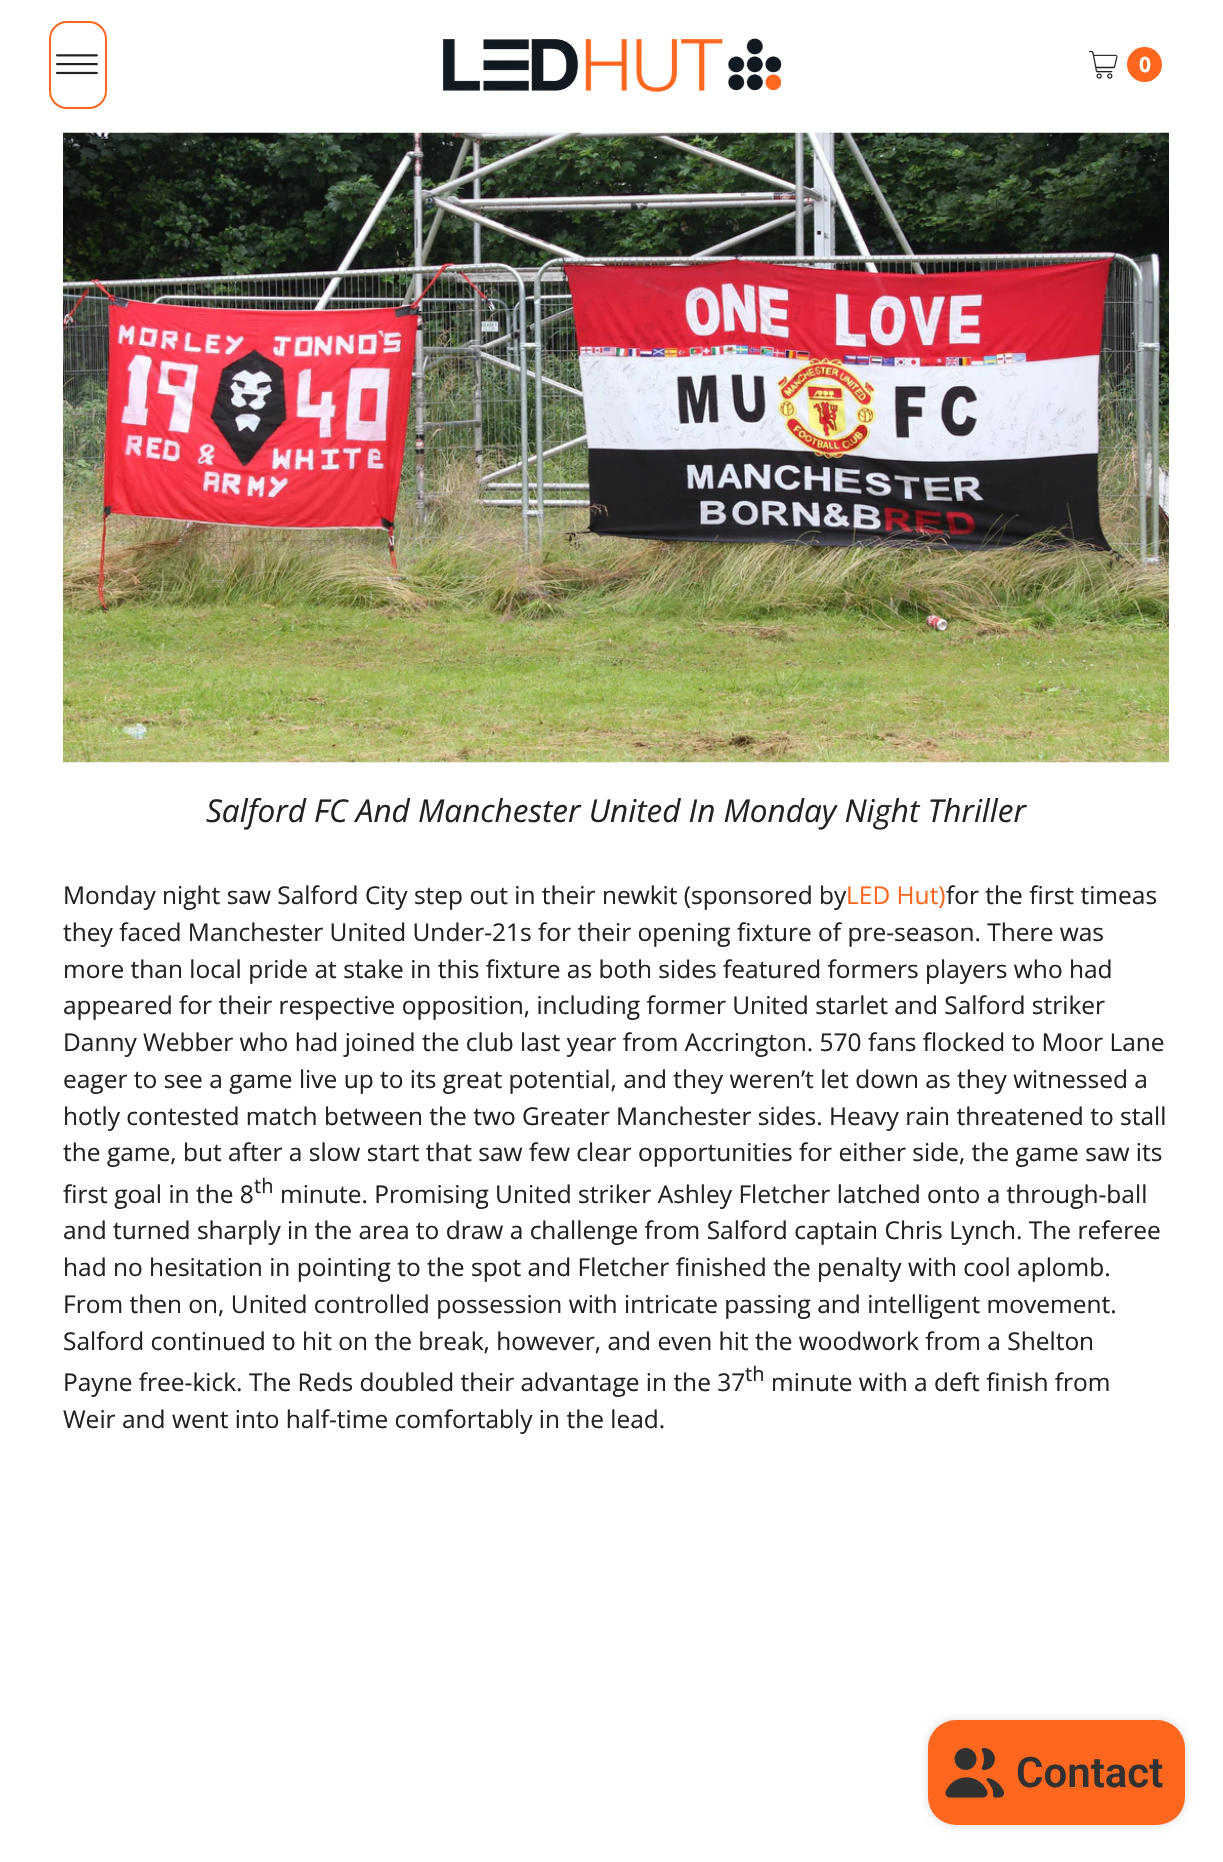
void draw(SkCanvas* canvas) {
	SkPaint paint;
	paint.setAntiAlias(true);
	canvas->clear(0xffffffff);
	paint.setStroke(true);
	paint.setStrokeWidth(2);
	paint.setColor(0xffff671f);
	canvas->drawRoundRect(SkRect::MakeXYWH(50, 22, 56, 86), 17, 17, paint);
	canvas->drawImageRect(SkImages::DeferredFromEncodedData(SkData::MakeFromFileName("img1.png")), SkRect::MakeXYWH(56, 54, 42, 21), SkSamplingOptions());
	canvas->drawImageRect(SkImages::DeferredFromEncodedData(SkData::MakeFromFileName("img2.png")), SkRect::MakeXYWH(442, 38, 340, 54), SkSamplingOptions());
	canvas->drawImageRect(SkImages::DeferredFromEncodedData(SkData::MakeFromFileName("img3.png")), SkRect::MakeXYWH(1089, 51, 29, 28), SkSamplingOptions());
	paint.setStroke(false);
	canvas->drawCircle(1144.5, 64.5, 17.5, paint);
	SkFont f1(fontMgr->matchFamilyStyle("Open Sans", SkFontStyle::Bold()), 21);
	f1.setSubpixel(true);
	paint.setColor(0xffffffff);
	canvas->drawString("0", 1139, 72, f1, paint);
	canvas->drawImageRect(SkImages::DeferredFromEncodedData(SkData::MakeFromFileName("img4.png")), SkRect::MakeXYWH(63, 132, 1106, 631), SkSamplingOptions());
	SkFont f2(fontMgr->matchFamilyStyle("Open Sans", SkFontStyle::Italic()), 31.5);
	f2.setSubpixel(true);
	paint.setColor(0xff222222);
	canvas->drawString("Salford FC And Manchester United In Monday Night Thriller", 206, 822, f2, paint);
	SkFont f3(fontMgr->matchFamilyStyle("Open Sans", SkFontStyle::Normal()), 24.5);
	f3.setSubpixel(true);
	canvas->drawString("Monday night saw Salford City step out in their newkit (sponsored by", 63, 904, f3, paint);
	paint.setColor(0xffff671f);
	canvas->drawString("LED Hut)", 846, 904, f3, paint);
	paint.setColor(0xff222222);
	canvas->drawString("for the first timeas", 946, 904, f3, paint);
	canvas->drawString("they faced Manchester United Under-21s for their opening fixture of pre-season. There was", 63, 941, f3, paint);
	canvas->drawString("more than local pride at stake in this fixture as both sides featured formers players who had", 63, 978, f3, paint);
	canvas->drawString("appeared for their respective opposition, including former United starlet and Salford striker", 63, 1014, f3, paint);
	canvas->drawString("Danny Webber who had joined the club last year from Accrington. 570 fans flocked to Moor Lane", 63, 1051, f3, paint);
	canvas->drawString("eager to see a game live up to its great potential, and they weren’t let down as they witnessed a", 63, 1088, f3, paint);
	canvas->drawString("hotly contested match between the two Greater Manchester sides. Heavy rain threatened to stall", 63, 1125, f3, paint);
	canvas->drawString("the game, but after a slow start that saw few clear opportunities for either side, the game saw its", 63, 1161, f3, paint);
	canvas->drawString("first goal in the 8", 63, 1203, f3, paint);
	SkFont f4(fontMgr->matchFamilyStyle("Open Sans", SkFontStyle::Normal()), 20);
	f4.setSubpixel(true);
	canvas->drawString("th", 254, 1193, f4, paint);
	canvas->drawString("minute. Promising United striker Ashley Fletcher latched onto a through-ball", 280, 1203, f3, paint);
	canvas->drawString("and turned sharply in the area to draw a challenge from Salford captain Chris Lynch. The referee", 63, 1239, f3, paint);
	canvas->drawString("had no hesitation in pointing to the spot and Fletcher finished the penalty with cool aplomb.", 63, 1276, f3, paint);
	canvas->drawString("From then on, United controlled possession with intricate passing and intelligent movement.", 63, 1313, f3, paint);
	canvas->drawString("Salford continued to hit on the break, however, and even hit the woodwork from a Shelton", 63, 1350, f3, paint);
	canvas->drawString("Payne free-kick. The Reds doubled their advantage in the 37", 63, 1391, f3, paint);
	canvas->drawString("th", 745, 1381, f4, paint);
	canvas->drawString("minute with a deft finish from", 771, 1391, f3, paint);
	canvas->drawString("Weir and went into half-time comfortably in the lead.", 63, 1428, f3, paint);
	paint.setColor(0x26000000);
	paint.setMaskFilter(SkMaskFilter::MakeBlur(kNormal_SkBlurStyle, 4.5));
	canvas->drawRoundRect(SkRect::MakeXYWH(928, 1720, 257, 105), 28, 28, paint);
	paint.setMaskFilter(nullptr);
	paint.setColor(0xffff671f);
	canvas->drawRoundRect(SkRect::MakeXYWH(928, 1720, 257, 105), 28, 28, paint);
	canvas->drawImageRect(SkImages::DeferredFromEncodedData(SkData::MakeFromFileName("img5.png")), SkRect::MakeXYWH(945, 1748, 60, 50), SkSamplingOptions());
	SkFont f5(fontMgr->matchFamilyStyle("Roboto", SkFontStyle(600, SkFontStyle::kNormal_Width, SkFontStyle::kUpright_Slant)), 42);
	f5.setSubpixel(true);
	paint.setColor(0xff313131);
	canvas->drawString("Contact", 1016, 1787, f5, paint);
}
